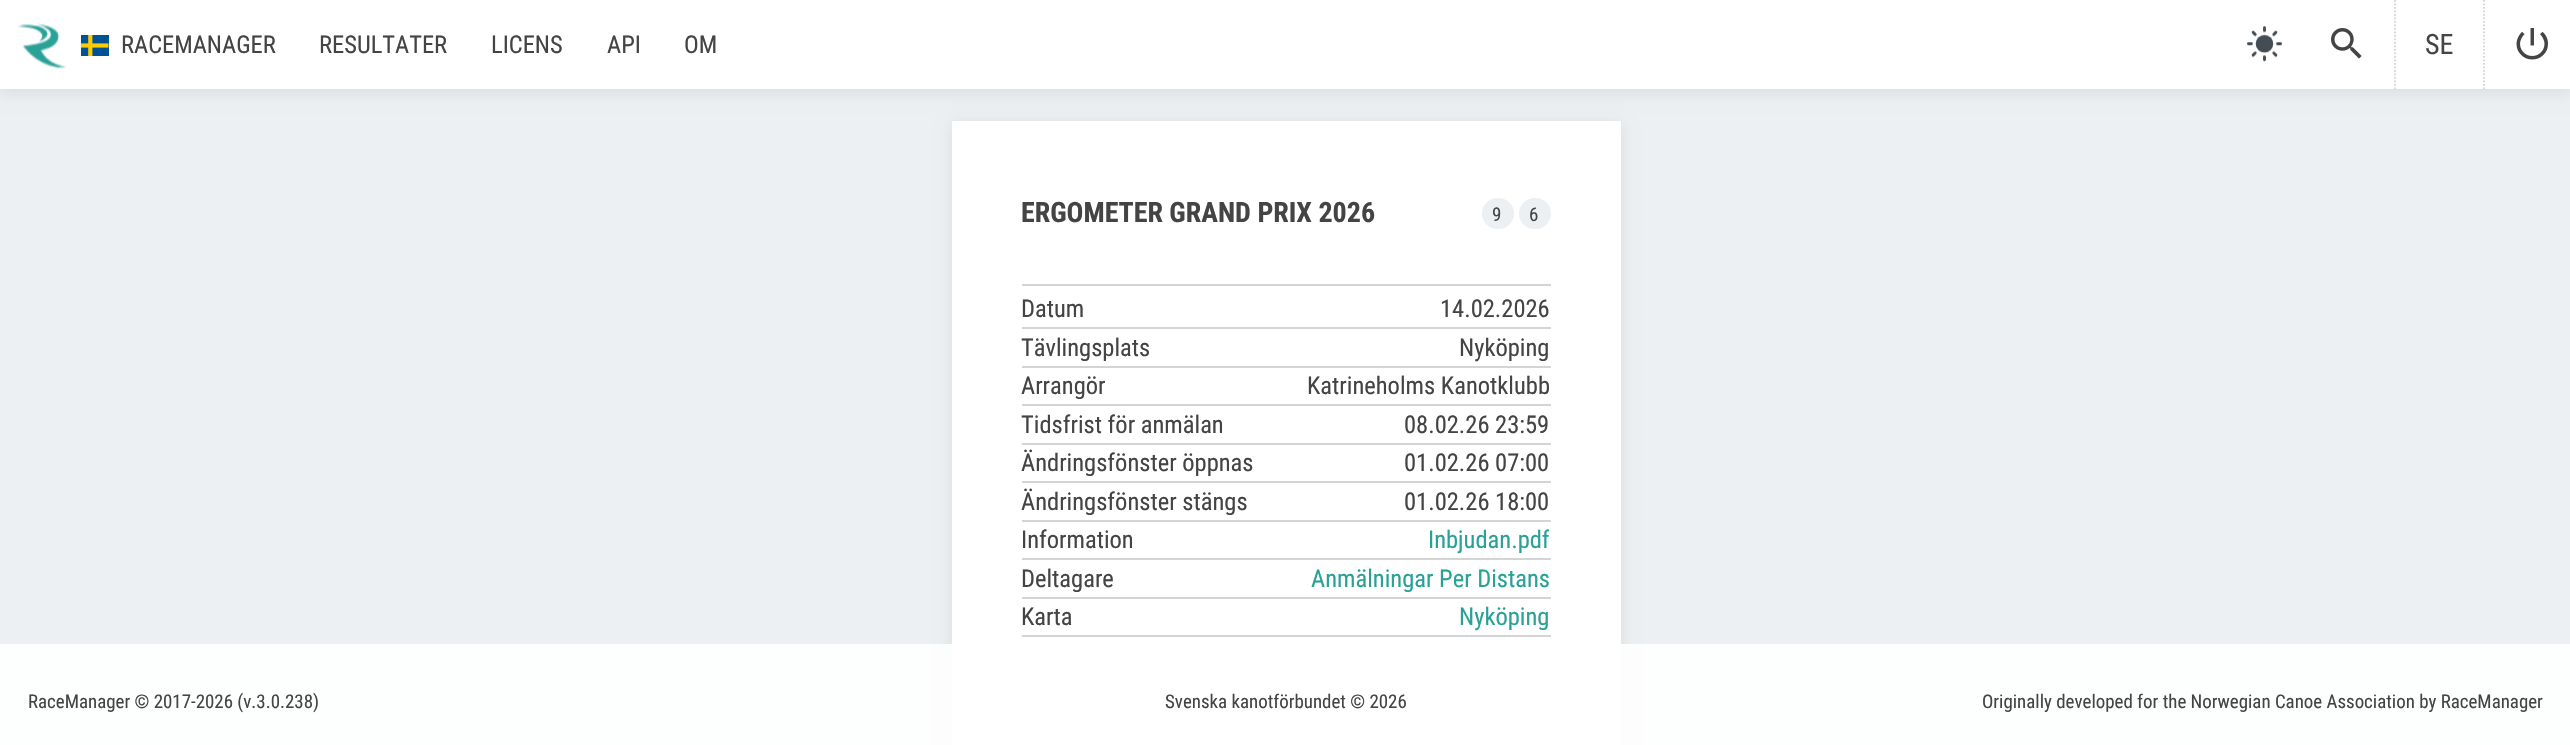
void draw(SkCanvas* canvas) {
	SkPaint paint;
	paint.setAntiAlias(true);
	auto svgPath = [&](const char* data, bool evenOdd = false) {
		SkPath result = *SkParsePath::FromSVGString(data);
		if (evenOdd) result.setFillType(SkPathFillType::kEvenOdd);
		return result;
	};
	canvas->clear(0xffecf0f3);
	paint.setColor(0x14000000);
	paint.setMaskFilter(SkMaskFilter::MakeBlur(kNormal_SkBlurStyle, 7));
	canvas->drawRect(SkRect::MakeXYWH(0, 4, 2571, 89), paint);
	paint.setMaskFilter(nullptr);
	paint.setColor(0xffffffff);
	canvas->drawRect(SkRect::MakeXYWH(0, 0, 2570, 89), paint);
	canvas->drawImageRect(SkImages::DeferredFromEncodedData(SkData::MakeFromFileName("img1.png")), SkRect::MakeXYWH(18, 23, 48, 46), SkSamplingOptions());
	canvas->drawImageRect(SkImages::DeferredFromEncodedData(SkData::MakeFromFileName("img2.png")), SkRect::MakeXYWH(81, 35, 28, 21), SkSamplingOptions());
	SkFont f1(fontMgr->matchFamilyStyle("Roboto Condensed", SkFontStyle::Normal()), 24.5);
	f1.setSubpixel(true);
	paint.setColor(0xff444444);
	canvas->drawString("RACEMANAGER", 121, 53, f1, paint);
	canvas->drawString("RESULTATER", 319, 53, f1, paint);
	canvas->drawString("LICENS", 491, 53, f1, paint);
	canvas->drawString("API", 607, 53, f1, paint);
	canvas->drawString("OM", 684, 53, f1, paint);
	canvas->drawImageRect(SkImages::DeferredFromEncodedData(SkData::MakeFromFileName("img3.png")), SkRect::MakeXYWH(2247, 26, 35, 36), SkSamplingOptions());
	canvas->drawImageRect(SkImages::DeferredFromEncodedData(SkData::MakeFromFileName("img4.png")), SkRect::MakeXYWH(2331, 28, 31, 31), SkSamplingOptions());
	paint.setStroke(true);
	paint.setStrokeWidth(1.8);
	paint.setColor(0xffd4d4d4);
	paint.setPathEffect(SkDashPathEffect::Make({{1.75f, 1.75f}}, 0));
	canvas->drawPath(svgPath("M2484 0V89"), paint);
	paint.setPathEffect(nullptr);
	paint.setPathEffect(SkDashPathEffect::Make({{1.75f, 1.75f}}, 0));
	canvas->drawPath(svgPath("M2395 0V89"), paint);
	paint.setPathEffect(nullptr);
	SkFont f2(fontMgr->matchFamilyStyle("Roboto Condensed", SkFontStyle::Normal()), 28);
	f2.setSubpixel(true);
	paint.setStroke(false);
	paint.setColor(0xff444444);
	canvas->drawString("SE", 2425, 54, f2, paint);
	canvas->drawImageRect(SkImages::DeferredFromEncodedData(SkData::MakeFromFileName("img5.png")), SkRect::MakeXYWH(2516, 28, 32, 32), SkSamplingOptions());
	paint.setColor(0x14000000);
	paint.setMaskFilter(SkMaskFilter::MakeBlur(kNormal_SkBlurStyle, 7));
	canvas->drawRect(SkRect::MakeXYWH(952, 124, 669, 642), paint);
	paint.setMaskFilter(nullptr);
	paint.setColor(0xffffffff);
	canvas->drawRect(SkRect::MakeXYWH(952, 121, 669, 624), paint);
	paint.setColor(0xffd4d4d4);
	canvas->drawRect(SkRect::MakeXYWH(1022, 284, 529, 2), paint);
	SkFont f3(fontMgr->matchFamilyStyle("Roboto Condensed", SkFontStyle::Bold()), 28);
	f3.setSubpixel(true);
	paint.setColor(0xff444444);
	canvas->drawString("ERGOMETER GRAND PRIX 2026", 1021, 222, f3, paint);
	paint.setColor(0xffecf0f3);
	canvas->drawRoundRect(SkRect::MakeXYWH(1482, 198, 32, 31), 15.5, 15.5, paint);
	SkFont f4(fontMgr->matchFamilyStyle("Roboto Condensed", SkFontStyle::Normal()), 19);
	f4.setSubpixel(true);
	paint.setColor(0xff444444);
	canvas->drawString("9", 1492, 221, f4, paint);
	paint.setColor(0xffecf0f3);
	canvas->drawRoundRect(SkRect::MakeXYWH(1519, 198, 32, 31), 15.5, 15.5, paint);
	paint.setColor(0xff444444);
	canvas->drawString("6", 1529, 221, f4, paint);
	paint.setColor(0xffd4d4d4);
	canvas->drawRect(SkRect::MakeXYWH(1022, 327, 529, 2), paint);
	paint.setColor(0xff444444);
	canvas->drawString("Datum", 1021, 317, f1, paint);
	canvas->drawString("14.02.2026", 1440, 317, f1, paint);
	paint.setColor(0xffd4d4d4);
	canvas->drawRect(SkRect::MakeXYWH(1022, 366, 529, 2), paint);
	paint.setColor(0xff444444);
	canvas->drawString("Tävlingsplats", 1021, 356, f1, paint);
	canvas->drawString("Nyköping", 1459, 356, f1, paint);
	paint.setColor(0xffd4d4d4);
	canvas->drawRect(SkRect::MakeXYWH(1022, 404, 529, 2), paint);
	paint.setColor(0xff444444);
	canvas->drawString("Arrangör", 1021, 394, f1, paint);
	canvas->drawString("Katrineholms Kanotklubb", 1307, 394, f1, paint);
	paint.setColor(0xffd4d4d4);
	canvas->drawRect(SkRect::MakeXYWH(1022, 443, 529, 2), paint);
	paint.setColor(0xff444444);
	canvas->drawString("Tidsfrist för anmälan", 1021, 433, f1, paint);
	canvas->drawString("08.02.26 23:59", 1404, 433, f1, paint);
	paint.setColor(0xffd4d4d4);
	canvas->drawRect(SkRect::MakeXYWH(1022, 481, 529, 2), paint);
	paint.setColor(0xff444444);
	canvas->drawString("Ändringsfönster öppnas", 1021, 471, f1, paint);
	canvas->drawString("01.02.26 07:00", 1404, 471, f1, paint);
	paint.setColor(0xffd4d4d4);
	canvas->drawRect(SkRect::MakeXYWH(1022, 520, 529, 2), paint);
	paint.setColor(0xff444444);
	canvas->drawString("Ändringsfönster stängs", 1021, 510, f1, paint);
	canvas->drawString("01.02.26 18:00", 1404, 510, f1, paint);
	paint.setColor(0xffd4d4d4);
	canvas->drawRect(SkRect::MakeXYWH(1022, 558, 529, 2), paint);
	paint.setColor(0xff444444);
	canvas->drawString("Information", 1021, 548, f1, paint);
	canvas->save();
	canvas->clipRect(SkRect::MakeXYWH(1197, 522, 352, 36));
	paint.setColor(0xff2aa197);
	canvas->drawString("Inbjudan.pdf", 1428, 548, f1, paint);
	canvas->restore();
	paint.setColor(0xffd4d4d4);
	canvas->drawRect(SkRect::MakeXYWH(1022, 597, 529, 2), paint);
	paint.setColor(0xff444444);
	canvas->drawString("Deltagare", 1021, 587, f1, paint);
	paint.setColor(0xff2aa197);
	canvas->drawString("Anmälningar Per Distans", 1311, 587, f1, paint);
	paint.setColor(0xffd4d4d4);
	canvas->drawRect(SkRect::MakeXYWH(1022, 635, 529, 2), paint);
	paint.setColor(0xff444444);
	canvas->drawString("Karta", 1021, 625, f1, paint);
	paint.setColor(0xff2aa197);
	canvas->drawString("Nyköping", 1459, 625, f1, paint);
	paint.setColor(0xe0ffffff);
	canvas->drawRect(SkRect::MakeXYWH(0, 644, 2570, 101), paint);
	SkFont f5(fontMgr->matchFamilyStyle("Roboto Condensed", SkFontStyle::Normal()), 18.9);
	f5.setSubpixel(true);
	paint.setColor(0xff444444);
	canvas->drawString("RaceManager © 2017-2026 (v.3.0.238)", 28, 708, f5, paint);
	canvas->drawString("Svenska kanotförbundet © 2026", 1165, 708, f5, paint);
	canvas->drawString("Originally developed for the Norwegian Canoe Association by RaceManager", 1982, 708, f5, paint);
}
